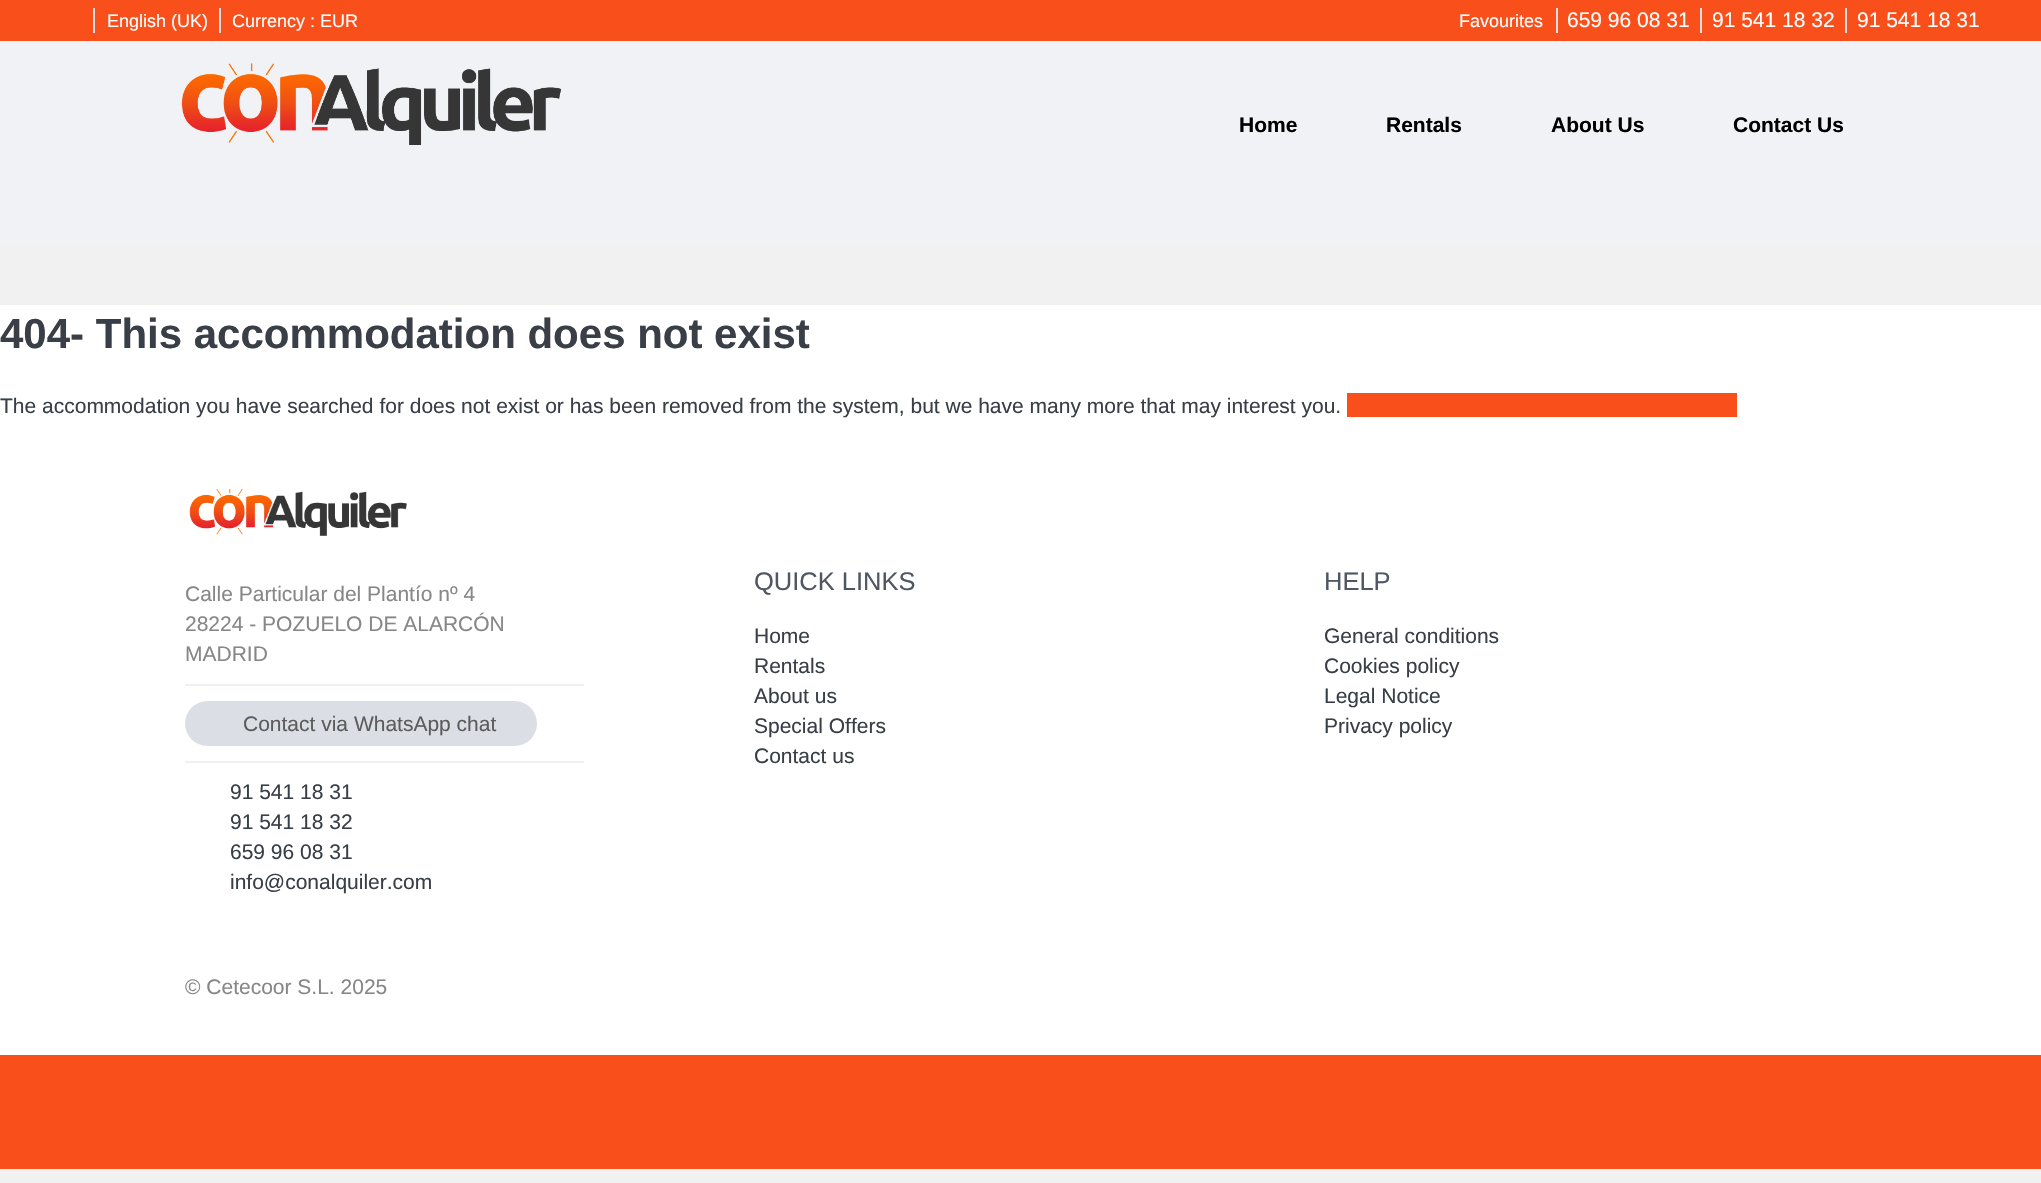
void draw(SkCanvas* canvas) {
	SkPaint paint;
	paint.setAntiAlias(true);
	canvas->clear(0xfff1f1f1);
	paint.setColor(0xfff1f2f6);
	canvas->drawRect(SkRect::MakeXYWH(0, 41, 2041, 205), paint);
	paint.setColor(0xfff9501b);
	canvas->drawRect(SkRect::MakeXYWH(0, 0, 2041, 41), paint);
	paint.setColor(0xffdadfe2);
	canvas->drawRect(SkRect::MakeXYWH(93, 8, 2, 25), paint);
	SkFont f1(fontMgr->matchFamilyStyle("Liberation Sans", SkFontStyle::Normal()), 18);
	f1.setSubpixel(true);
	paint.setColor(0xffffffff);
	canvas->drawString("English (UK)", 107, 27, f1, paint);
	paint.setColor(0xffdadfe2);
	canvas->drawRect(SkRect::MakeXYWH(219, 8, 2, 25), paint);
	paint.setColor(0xffffffff);
	canvas->drawString("Currency : EUR", 232, 27, f1, paint);
	canvas->drawString("Favourites", 1459, 27, f1, paint);
	paint.setColor(0xffdadfe2);
	canvas->drawRect(SkRect::MakeXYWH(1556, 8, 2, 25), paint);
	SkFont f2(fontMgr->matchFamilyStyle("Liberation Sans", SkFontStyle::Normal()), 21);
	f2.setSubpixel(true);
	paint.setColor(0xffffffff);
	canvas->drawString("659 96 08 31", 1567, 27, f2, paint);
	paint.setColor(0xffdadfe2);
	canvas->drawRect(SkRect::MakeXYWH(1700, 8, 2, 25), paint);
	paint.setColor(0xffffffff);
	canvas->drawString("91 541 18 32", 1712, 27, f2, paint);
	paint.setColor(0xffdadfe2);
	canvas->drawRect(SkRect::MakeXYWH(1845, 8, 2, 25), paint);
	paint.setColor(0xffffffff);
	canvas->drawString("91 541 18 31", 1857, 27, f2, paint);
	canvas->drawImageRect(SkImages::DeferredFromEncodedData(SkData::MakeFromFileName("img1.png")), SkRect::MakeXYWH(181, 63, 381, 82), SkSamplingOptions());
	SkFont f3(fontMgr->matchFamilyStyle("Liberation Sans", SkFontStyle::Bold()), 21);
	f3.setSubpixel(true);
	paint.setColor(0xff000000);
	canvas->drawString("Home", 1239, 132, f3, paint);
	canvas->drawString("Rentals", 1386, 132, f3, paint);
	canvas->drawString("About Us", 1551, 132, f3, paint);
	canvas->drawString("Contact Us", 1733, 132, f3, paint);
	paint.setColor(0xffffffff);
	canvas->drawRect(SkRect::MakeXYWH(0, 305, 2041, 750), paint);
	SkFont f4(fontMgr->matchFamilyStyle("Liberation Sans", SkFontStyle::Bold()), 42);
	f4.setSubpixel(true);
	paint.setColor(0xff393e47);
	canvas->drawString("404- This accommodation does not exist", 0, 348, f4, paint);
	canvas->drawString("The accommodation you have searched for does not exist or has been removed from the system, but we have many more that may interest you.", 0, 413, f2, paint);
	paint.setColor(0xfff9501b);
	canvas->drawRect(SkRect::MakeXYWH(1347, 393, 390, 24), paint);
	canvas->drawImageRect(SkImages::DeferredFromEncodedData(SkData::MakeFromFileName("img2.png")), SkRect::MakeXYWH(189, 488, 218, 48), SkSamplingOptions());
	paint.setColor(0xff878787);
	canvas->drawString("Calle Particular del Plantío nº 4", 185, 601, f2, paint);
	canvas->drawString("28224 - POZUELO DE ALARCÓN", 185, 631, f2, paint);
	canvas->drawString("MADRID", 185, 661, f2, paint);
	paint.setColor(0xfff0f0f0);
	canvas->drawRect(SkRect::MakeXYWH(185, 684, 399, 2), paint);
	paint.setColor(0xffdbdfe5);
	canvas->drawRoundRect(SkRect::MakeXYWH(185, 701, 352, 45), 22.5, 22.5, paint);
	paint.setColor(0xff5c5c5c);
	canvas->drawString("Contact via WhatsApp chat", 243, 731, f2, paint);
	paint.setColor(0xfff0f0f0);
	canvas->drawRect(SkRect::MakeXYWH(185, 761, 399, 2), paint);
	paint.setColor(0xff393e47);
	canvas->drawString("91 541 18 31", 230, 799, f2, paint);
	canvas->drawString("91 541 18 32", 230, 829, f2, paint);
	canvas->drawString("659 96 08 31", 230, 859, f2, paint);
	canvas->drawString("info@conalquiler.com", 230, 889, f2, paint);
	paint.setColor(0xff878787);
	canvas->drawString("© Cetecoor S.L. 2025", 185, 994, f2, paint);
	SkFont f5(fontMgr->matchFamilyStyle("Liberation Sans", SkFontStyle::Normal()), 25.5);
	f5.setSubpixel(true);
	paint.setColor(0xff505763);
	canvas->drawString("QUICK LINKS", 754, 590, f5, paint);
	paint.setColor(0xff393e47);
	canvas->drawString("Home", 754, 643, f2, paint);
	canvas->drawString("Rentals", 754, 673, f2, paint);
	canvas->drawString("About us", 754, 703, f2, paint);
	canvas->drawString("Special Offers", 754, 733, f2, paint);
	canvas->drawString("Contact us", 754, 763, f2, paint);
	paint.setColor(0xff505763);
	canvas->drawString("HELP", 1324, 590, f5, paint);
	paint.setColor(0xff393e47);
	canvas->drawString("General conditions", 1324, 643, f2, paint);
	canvas->drawString("Cookies policy", 1324, 673, f2, paint);
	canvas->drawString("Legal Notice", 1324, 703, f2, paint);
	canvas->drawString("Privacy policy", 1324, 733, f2, paint);
	paint.setColor(0xfff9501b);
	canvas->drawRect(SkRect::MakeXYWH(0, 1055, 2041, 114), paint);
}
